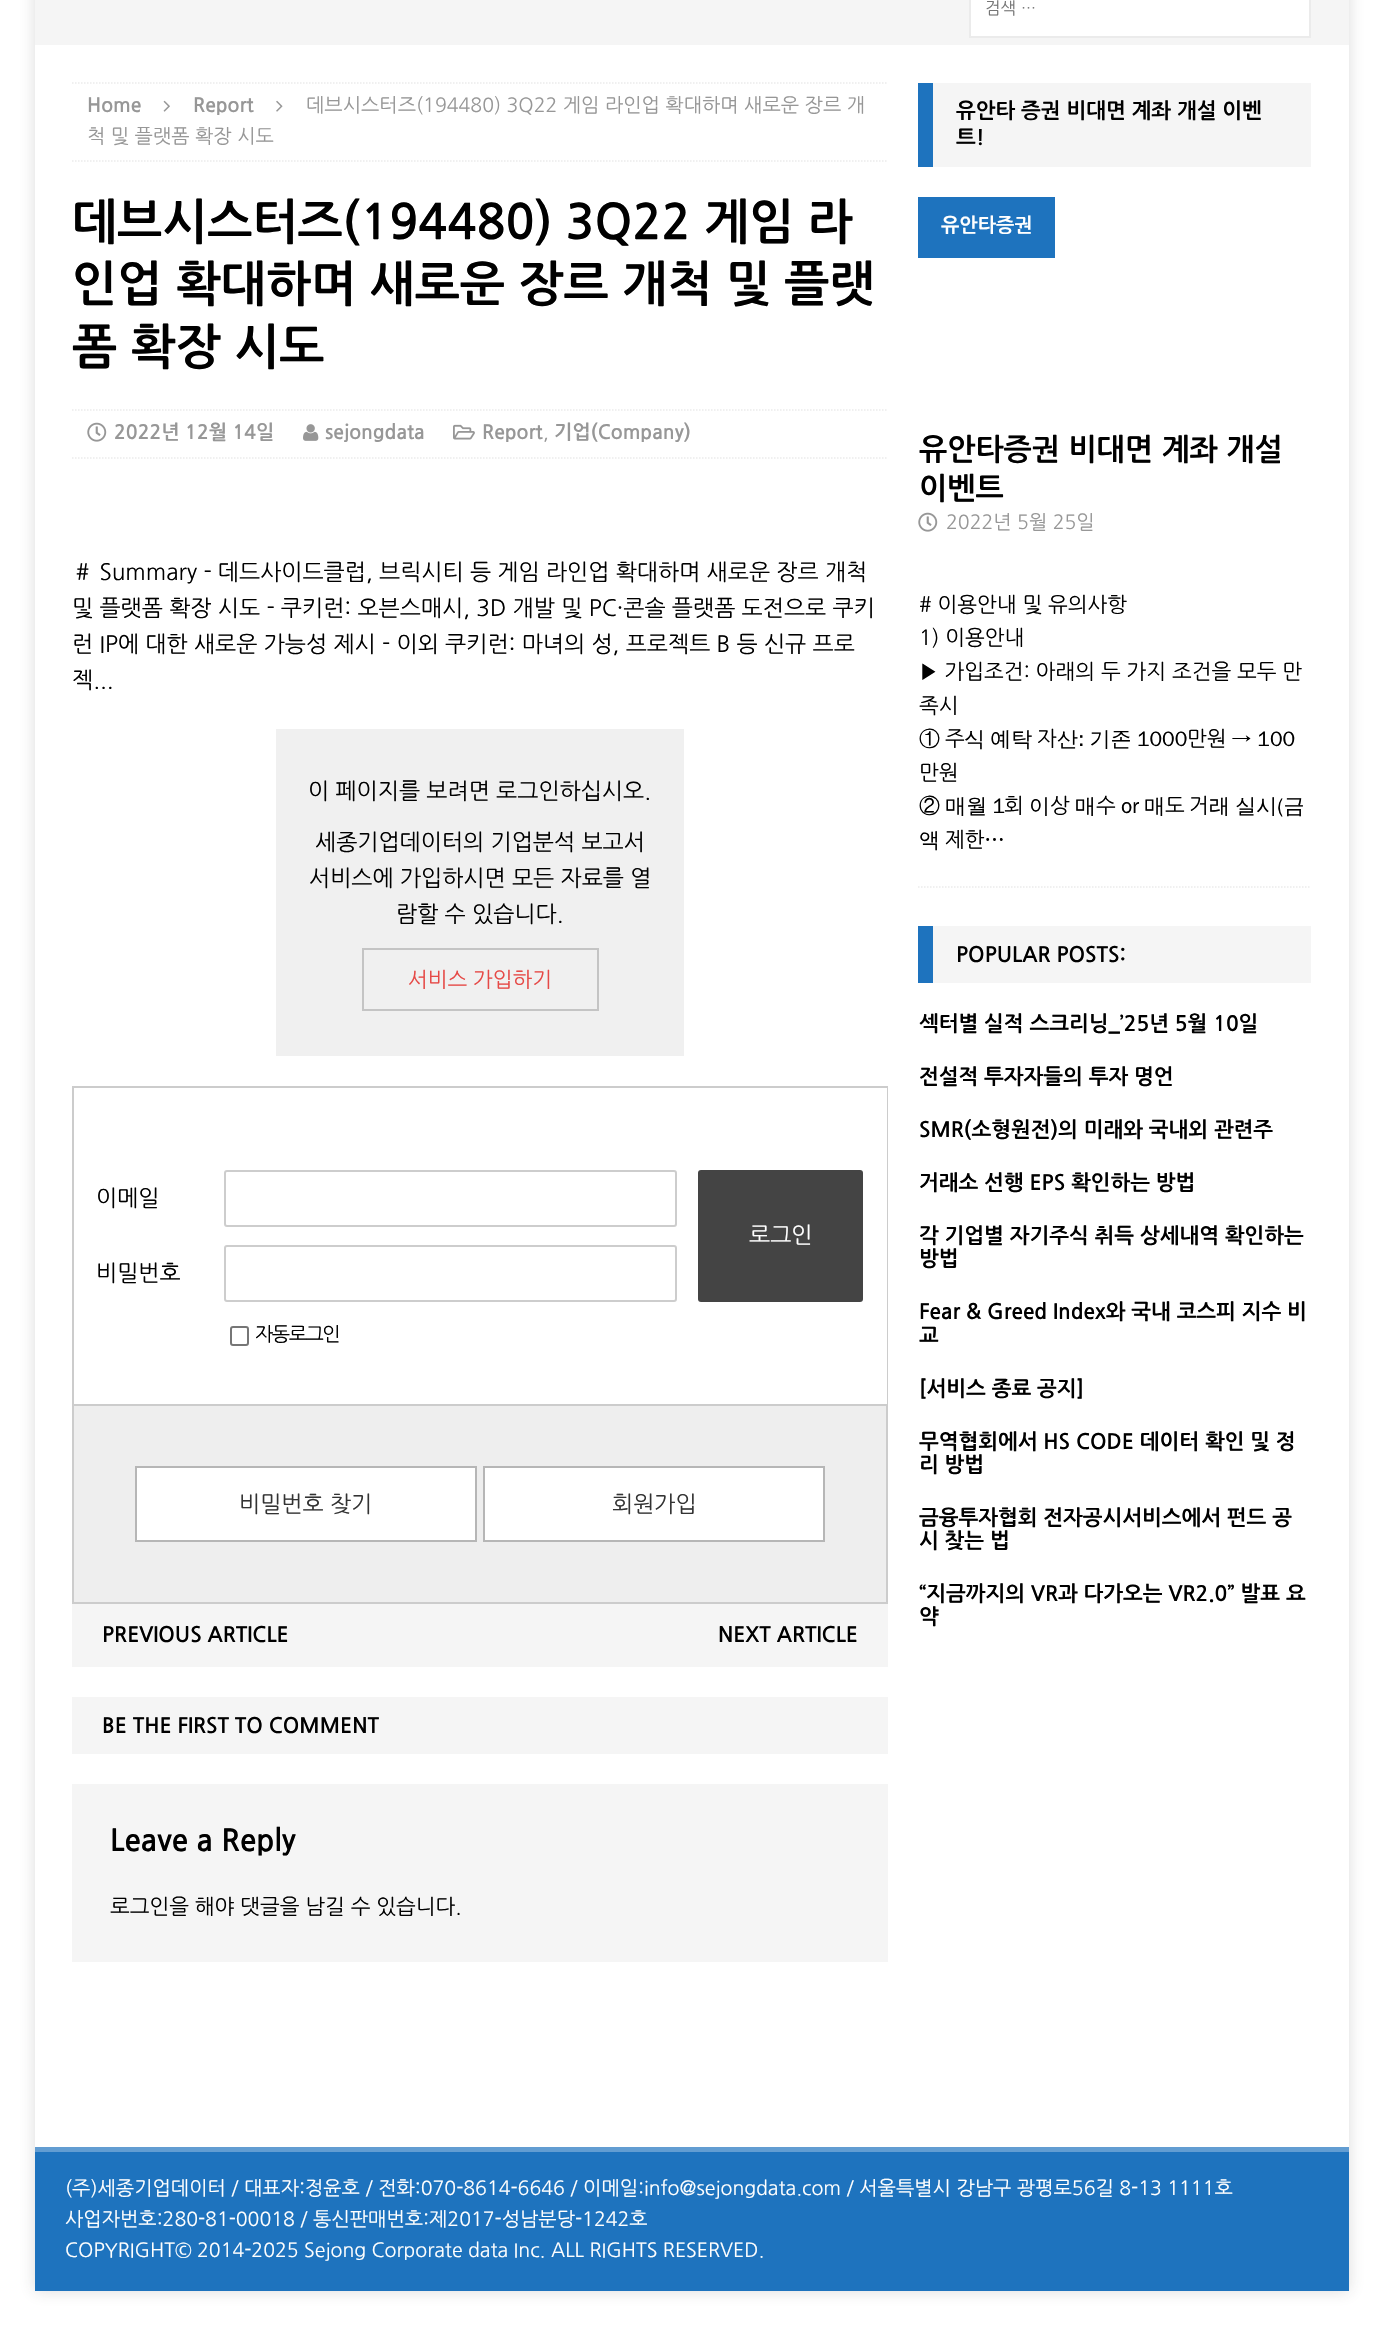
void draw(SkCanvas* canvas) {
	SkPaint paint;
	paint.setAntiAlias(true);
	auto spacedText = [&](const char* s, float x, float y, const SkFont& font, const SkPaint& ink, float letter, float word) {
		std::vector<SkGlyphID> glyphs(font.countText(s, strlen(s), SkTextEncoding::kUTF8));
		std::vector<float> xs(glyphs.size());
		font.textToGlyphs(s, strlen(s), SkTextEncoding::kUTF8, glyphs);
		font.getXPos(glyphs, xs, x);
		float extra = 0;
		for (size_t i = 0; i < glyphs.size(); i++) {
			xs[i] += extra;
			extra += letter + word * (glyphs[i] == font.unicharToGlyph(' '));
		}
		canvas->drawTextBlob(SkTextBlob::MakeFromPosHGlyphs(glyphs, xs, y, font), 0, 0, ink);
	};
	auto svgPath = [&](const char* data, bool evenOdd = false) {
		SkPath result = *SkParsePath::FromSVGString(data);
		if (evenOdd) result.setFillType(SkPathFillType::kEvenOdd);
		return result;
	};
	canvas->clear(0xffffffff);
	paint.setColor(0x2b323232);
	paint.setMaskFilter(SkMaskFilter::MakeBlur(kNormal_SkBlurStyle, 7.5));
	canvas->drawRect(SkRect::MakeXYWH(35, -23, 1314, 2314), paint);
	paint.setMaskFilter(nullptr);
	paint.setColor(0xfff5f5f5);
	canvas->drawRect(SkRect::MakeXYWH(35, 0, 1314, 45), paint);
	paint.setColor(0xffffffff);
	canvas->drawRect(SkRect::MakeXYWH(970, -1, 340, 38), paint);
	paint.setStroke(true);
	paint.setStrokeWidth(2);
	paint.setColor(0xffebebeb);
	canvas->drawRect(SkRect::MakeXYWH(970, -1, 340, 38), paint);
	SkFont f1(fontMgr->matchFamilyStyle("NanumGothic", SkFontStyle::Normal()), 16.5);
	f1.setSubpixel(true);
	paint.setStroke(false);
	paint.setColor(0xff757575);
	canvas->drawString("검색 …", 985, 14, f1, paint);
	paint.setColor(0xffffffff);
	canvas->drawRect(SkRect::MakeXYWH(35, 45, 1314, 2102), paint);
	paint.setStroke(true);
	paint.setStrokeWidth(1.5);
	paint.setColor(0xffebebeb);
	paint.setPathEffect(SkDashPathEffect::Make({{1.5f, 1.5f}}, 0));
	canvas->drawPath(svgPath("M72 83H888"), paint);
	paint.setPathEffect(nullptr);
	paint.setPathEffect(SkDashPathEffect::Make({{1.5f, 1.5f}}, 0));
	canvas->drawPath(svgPath("M72 161H888"), paint);
	paint.setPathEffect(nullptr);
	SkFont f2(fontMgr->matchFamilyStyle("NanumGothic", SkFontStyle::Bold()), 19.5);
	f2.setSubpixel(true);
	paint.setStroke(false);
	paint.setColor(0xff979797);
	canvas->drawString("Home", 87, 112, f2, paint);
	canvas->drawImageRect(SkImages::DeferredFromEncodedData(SkData::MakeFromFileName("img1.png")), SkRect::MakeXYWH(163, 100, 7, 12), SkSamplingOptions());
	canvas->drawString("Report", 193, 112, f2, paint);
	canvas->drawImageRect(SkImages::DeferredFromEncodedData(SkData::MakeFromFileName("img2.png")), SkRect::MakeXYWH(276, 100, 7, 12), SkSamplingOptions());
	SkFont f3(fontMgr->matchFamilyStyle("NanumGothic", SkFontStyle::Normal()), 19.5);
	f3.setSubpixel(true);
	canvas->drawString("데브시스터즈(194480) 3Q22 게임 라인업 확대하며 새로운 장르 개", 306, 112, f3, paint);
	canvas->drawString("척 및 플랫폼 확장 시도", 87, 143, f3, paint);
	SkFont f4(fontMgr->matchFamilyStyle("NanumGothic", SkFontStyle::Bold()), 48);
	f4.setSubpixel(true);
	paint.setColor(0xff000000);
	canvas->drawString("데브시스터즈(194480) 3Q22 게임 라", 72, 239, f4, paint);
	canvas->drawString("인업 확대하며 새로운 장르 개척 및 플랫", 72, 301, f4, paint);
	canvas->drawString("폼 확장 시도", 72, 364, f4, paint);
	paint.setStroke(true);
	paint.setColor(0xffebebeb);
	paint.setPathEffect(SkDashPathEffect::Make({{1.5f, 1.5f}}, 0));
	canvas->drawPath(svgPath("M72 410H888"), paint);
	paint.setPathEffect(nullptr);
	paint.setPathEffect(SkDashPathEffect::Make({{1.5f, 1.5f}}, 0));
	canvas->drawPath(svgPath("M72 458H888"), paint);
	paint.setPathEffect(nullptr);
	canvas->drawImageRect(SkImages::DeferredFromEncodedData(SkData::MakeFromFileName("img3.png")), SkRect::MakeXYWH(87, 422, 20, 20), SkSamplingOptions());
	paint.setStroke(false);
	paint.setColor(0xff979797);
	canvas->drawString("2022년 12월 14일", 114, 439, f2, paint);
	canvas->drawImageRect(SkImages::DeferredFromEncodedData(SkData::MakeFromFileName("img4.png")), SkRect::MakeXYWH(303, 424, 16, 17), SkSamplingOptions());
	canvas->drawString("sejongdata", 325, 439, f2, paint);
	canvas->drawImageRect(SkImages::DeferredFromEncodedData(SkData::MakeFromFileName("img5.png")), SkRect::MakeXYWH(453, 424, 22, 16), SkSamplingOptions());
	canvas->drawString("Report", 482, 439, f2, paint);
	canvas->drawString(",", 543, 439, f3, paint);
	canvas->drawString("기업(Company)", 554, 439, f2, paint);
	SkFont f5(fontMgr->matchFamilyStyle("NanumGothic", SkFontStyle::Normal()), 22.5);
	f5.setSubpixel(true);
	paint.setColor(0xff000000);
	canvas->drawString("＃ Summary - 데드사이드클럽, 브릭시티 등 게임 라인업 확대하며 새로운 장르 개척", 72, 580, f5, paint);
	canvas->drawString("및 플랫폼 확장 시도 - 쿠키런: 오븐스매시, 3D 개발 및 PC·콘솔 플랫폼 도전으로 쿠키", 72, 616, f5, paint);
	canvas->drawString("런 IP에 대한 새로운 가능성 제시 - 이외 쿠키런: 마녀의 성, 프로젝트 B 등 신규 프로", 72, 652, f5, paint);
	canvas->drawString("젝...", 72, 688, f5, paint);
	paint.setColor(0xfff0f0f0);
	canvas->drawRect(SkRect::MakeXYWH(276, 729, 408, 327), paint);
	paint.setColor(0xff000000);
	canvas->drawString("이 페이지를 보려면 로그인하십시오.", 308, 799, f5, paint);
	canvas->drawString("세종기업데이터의 기업분석 보고서", 315, 850, f5, paint);
	canvas->drawString("서비스에 가입하시면 모든 자료를 열", 309, 886, f5, paint);
	canvas->drawString("람할 수 있습니다.", 396, 922, f5, paint);
	paint.setStroke(true);
	paint.setStrokeWidth(2);
	paint.setColor(0xffc4c4c4);
	canvas->drawRect(SkRect::MakeXYWH(363, 949, 235, 61), paint);
	SkFont f6(fontMgr->matchFamilyStyle("NanumGothic", SkFontStyle::Normal()), 21);
	f6.setSubpixel(true);
	paint.setStroke(false);
	paint.setColor(0xffe64946);
	canvas->drawString("서비스 가입하기", 408, 987, f6, paint);
	paint.setColor(0xffcccccc);
	canvas->drawRect(SkRect::MakeXYWH(72, 1086, 816, 2), paint);
	canvas->drawRect(SkRect::MakeXYWH(887, 1086, 1, 318), paint);
	canvas->drawRect(SkRect::MakeXYWH(72, 1086, 2, 318), paint);
	paint.setColor(0xff000000);
	canvas->drawString("이메일", 96, 1206, f5, paint);
	paint.setStroke(true);
	paint.setColor(0xffcdcdcd);
	canvas->drawRoundRect(SkRect::MakeXYWH(225, 1171, 451, 55), 2, 2, paint);
	paint.setStroke(false);
	paint.setColor(0xff000000);
	canvas->drawString("비밀번호", 96, 1281, f5, paint);
	paint.setStroke(true);
	paint.setColor(0xffcdcdcd);
	canvas->drawRoundRect(SkRect::MakeXYWH(225, 1246, 451, 55), 2, 2, paint);
	paint.setColor(0xff767676);
	canvas->drawRoundRect(SkRect::MakeXYWH(231, 1327, 17, 18), 2, 2, paint);
	paint.setStroke(false);
	paint.setColor(0xff000000);
	spacedText("자동로그인", 255, 1341, f3, paint, -1.5, 0);
	paint.setColor(0xff444444);
	canvas->drawRoundRect(SkRect::MakeXYWH(698, 1170, 165, 132), 3, 3, paint);
	paint.setColor(0xffffffff);
	canvas->drawString("로그인", 749, 1243, f5, paint);
	paint.setColor(0xffeeeeee);
	canvas->drawRect(SkRect::MakeXYWH(73, 1405, 814, 198), paint);
	paint.setStroke(true);
	paint.setColor(0xffcccccc);
	canvas->drawRect(SkRect::MakeXYWH(73, 1405, 814, 198), paint);
	paint.setStroke(false);
	paint.setColor(0xffffffff);
	canvas->drawRect(SkRect::MakeXYWH(136, 1467, 340, 74), paint);
	paint.setStroke(true);
	paint.setColor(0xffb6b6b6);
	canvas->drawRect(SkRect::MakeXYWH(136, 1467, 340, 74), paint);
	paint.setStroke(false);
	paint.setColor(0xff333333);
	canvas->drawString("비밀번호 찾기", 239, 1512, f5, paint);
	paint.setColor(0xffffffff);
	canvas->drawRect(SkRect::MakeXYWH(484, 1467, 340, 74), paint);
	paint.setStroke(true);
	paint.setColor(0xffb6b6b6);
	canvas->drawRect(SkRect::MakeXYWH(484, 1467, 340, 74), paint);
	paint.setStroke(false);
	paint.setColor(0xff333333);
	canvas->drawString("회원가입", 612, 1512, f5, paint);
	paint.setColor(0xfff5f5f5);
	canvas->drawRect(SkRect::MakeXYWH(72, 1604, 816, 63), paint);
	SkFont f7(fontMgr->matchFamilyStyle("NanumGothic", SkFontStyle::Bold()), 21);
	f7.setSubpixel(true);
	paint.setColor(0xff000000);
	canvas->drawString("PREVIOUS ARTICLE", 102, 1642, f7, paint);
	canvas->drawString("NEXT ARTICLE", 718, 1642, f7, paint);
	paint.setColor(0xfff5f5f5);
	canvas->drawRect(SkRect::MakeXYWH(72, 1697, 816, 57), paint);
	paint.setColor(0xff000000);
	canvas->drawString("BE THE FIRST TO COMMENT", 102, 1733, f7, paint);
	paint.setColor(0xfff5f5f5);
	canvas->drawRect(SkRect::MakeXYWH(72, 1784, 816, 178), paint);
	SkFont f8(fontMgr->matchFamilyStyle("NanumGothic", SkFontStyle::Bold()), 30);
	f8.setSubpixel(true);
	paint.setColor(0xff000000);
	canvas->drawString("Leave a Reply", 110, 1851, f8, paint);
	canvas->drawString("로그인을 해야 댓글을 남길 수 있습니다.", 110, 1914, f6, paint);
	paint.setColor(0xfff5f5f5);
	canvas->drawRect(SkRect::MakeXYWH(933, 83, 378, 84), paint);
	paint.setColor(0xff1e73be);
	canvas->drawRect(SkRect::MakeXYWH(918, 83, 15, 84), paint);
	paint.setColor(0xff000000);
	canvas->drawString("유안타 증권 비대면 계좌 개설 이벤", 956, 118, f7, paint);
	canvas->drawString("트!", 956, 145, f7, paint);
	paint.setStroke(true);
	paint.setStrokeWidth(1.5);
	paint.setColor(0xffebebeb);
	paint.setPathEffect(SkDashPathEffect::Make({{1.5f, 1.5f}}, 0));
	canvas->drawPath(svgPath("M918 887H1311"), paint);
	paint.setPathEffect(nullptr);
	paint.setStroke(false);
	paint.setColor(0xff1e73be);
	canvas->drawRect(SkRect::MakeXYWH(918, 197, 137, 61), paint);
	paint.setColor(0xffffffff);
	canvas->drawString("유안타증권", 941, 232, f2, paint);
	paint.setColor(0xff000000);
	canvas->drawString("유안타증권 비대면 계좌 개설", 919, 460, f8, paint);
	canvas->drawString("이벤트", 919, 499, f8, paint);
	canvas->drawImageRect(SkImages::DeferredFromEncodedData(SkData::MakeFromFileName("img3.png")), SkRect::MakeXYWH(918, 512, 20, 20), SkSamplingOptions());
	paint.setColor(0xff979797);
	canvas->drawString("2022년 5월 25일", 946, 529, f3, paint);
	paint.setColor(0xff000000);
	canvas->drawString("# 이용안내 및 유의사항", 919, 612, f6, paint);
	canvas->drawString("1) 이용안내", 919, 645, f6, paint);
	canvas->drawString("▶ 가입조건: 아래의 두 가지 조건을 모두 만", 919, 679, f6, paint);
	canvas->drawString("족시", 919, 713, f6, paint);
	SkFont f9(fontMgr->matchFamilyStyle("WenQuanYi Zen Hei", SkFontStyle(500, SkFontStyle::kNormal_Width, SkFontStyle::kUpright_Slant)), 21);
	f9.setSubpixel(true);
	canvas->drawString("①", 919, 746, f9, paint);
	canvas->drawString("주", 945, 746, f6, paint);
	spacedText("식 예탁", 964, 746, f9, paint, 0, -1);
	canvas->drawString("자", 1037, 746, f6, paint);
	spacedText("산: 기존 1000", 1057, 746, f9, paint, 0, -1);
	canvas->drawString("만원", 1187, 746, f6, paint);
	spacedText("→ 100", 1231, 746, f9, paint, 0, -1);
	canvas->drawString("만원", 919, 780, f6, paint);
	spacedText("② 매월 1", 919, 813, f9, paint, 0, -1);
	canvas->drawString("회", 1004, 813, f6, paint);
	canvas->drawString("이", 1029, 813, f9, paint);
	canvas->drawString("상", 1050, 813, f6, paint);
	canvas->drawString("매", 1075, 813, f9, paint);
	canvas->drawString("수", 1096, 813, f6, paint);
	spacedText("or 매", 1121, 813, f9, paint, 0, -1);
	canvas->drawString("도", 1165, 813, f6, paint);
	canvas->drawString("거", 1189, 813, f6, paint);
	spacedText("래 실시(금", 1209, 813, f9, paint, 0, -1);
	canvas->drawString("액", 919, 847, f9, paint);
	canvas->drawString("제한", 945, 847, f6, paint);
	canvas->drawString("…", 984, 847, f9, paint);
	paint.setColor(0xfff5f5f5);
	canvas->drawRect(SkRect::MakeXYWH(933, 926, 378, 57), paint);
	paint.setColor(0xff1e73be);
	canvas->drawRect(SkRect::MakeXYWH(918, 926, 15, 57), paint);
	paint.setColor(0xff000000);
	canvas->drawString("POPULAR POSTS:", 956, 962, f7, paint);
	canvas->drawString("섹터별 실적 스크리닝_’25년 5월 10일", 919, 1031, f7, paint);
	canvas->drawString("전설적 투자자들의 투자 명언", 919, 1084, f7, paint);
	canvas->drawString("SMR(소형원전)의 미래와 국내외 관련주", 919, 1137, f7, paint);
	canvas->drawString("거래소 선행 EPS 확인하는 방법", 919, 1190, f7, paint);
	canvas->drawString("각 기업별 자기주식 취득 상세내역 확인하는", 919, 1243, f7, paint);
	canvas->drawString("방법", 919, 1266, f7, paint);
	canvas->drawString("Fear & Greed Index와 국내 코스피 지수 비", 919, 1319, f7, paint);
	canvas->drawString("교", 919, 1343, f7, paint);
	canvas->drawString("[서비스 종료 공지]", 919, 1396, f7, paint);
	canvas->drawString("무역협회에서 HS CODE 데이터 확인 및 정", 919, 1449, f7, paint);
	canvas->drawString("리 방법", 919, 1472, f7, paint);
	canvas->drawString("금융투자협회 전자공시서비스에서 펀드 공", 919, 1525, f7, paint);
	canvas->drawString("시 찾는 법", 919, 1548, f7, paint);
	canvas->drawString("“지금까지의 VR과 다가오는 VR2.0” 발표 요", 919, 1601, f7, paint);
	canvas->drawString("약", 919, 1624, f7, paint);
	paint.setColor(0xff1e73be);
	canvas->drawRect(SkRect::MakeXYWH(35, 2152, 1314, 139), paint);
	paint.setColor(0xff629dd2);
	canvas->drawRect(SkRect::MakeXYWH(35, 2147, 1314, 5), paint);
	paint.setColor(0xffffffff);
	canvas->drawString("(주)세종기업데이터 / 대표자:정윤호 / 전화:070-8614-6646 / 이메일:info@sejongdata.com / 서울특별시 강남구 광평로56길 8-13 1111호", 65, 2195, f3, paint);
	canvas->drawString("사업자번호:280-81-00018 / 통신판매번호:제2017-성남분당-1242호", 65, 2226, f3, paint);
	canvas->drawString("COPYRIGHT© 2014-2025 Sejong Corporate data Inc. ALL RIGHTS RESERVED.", 65, 2257, f3, paint);
}
